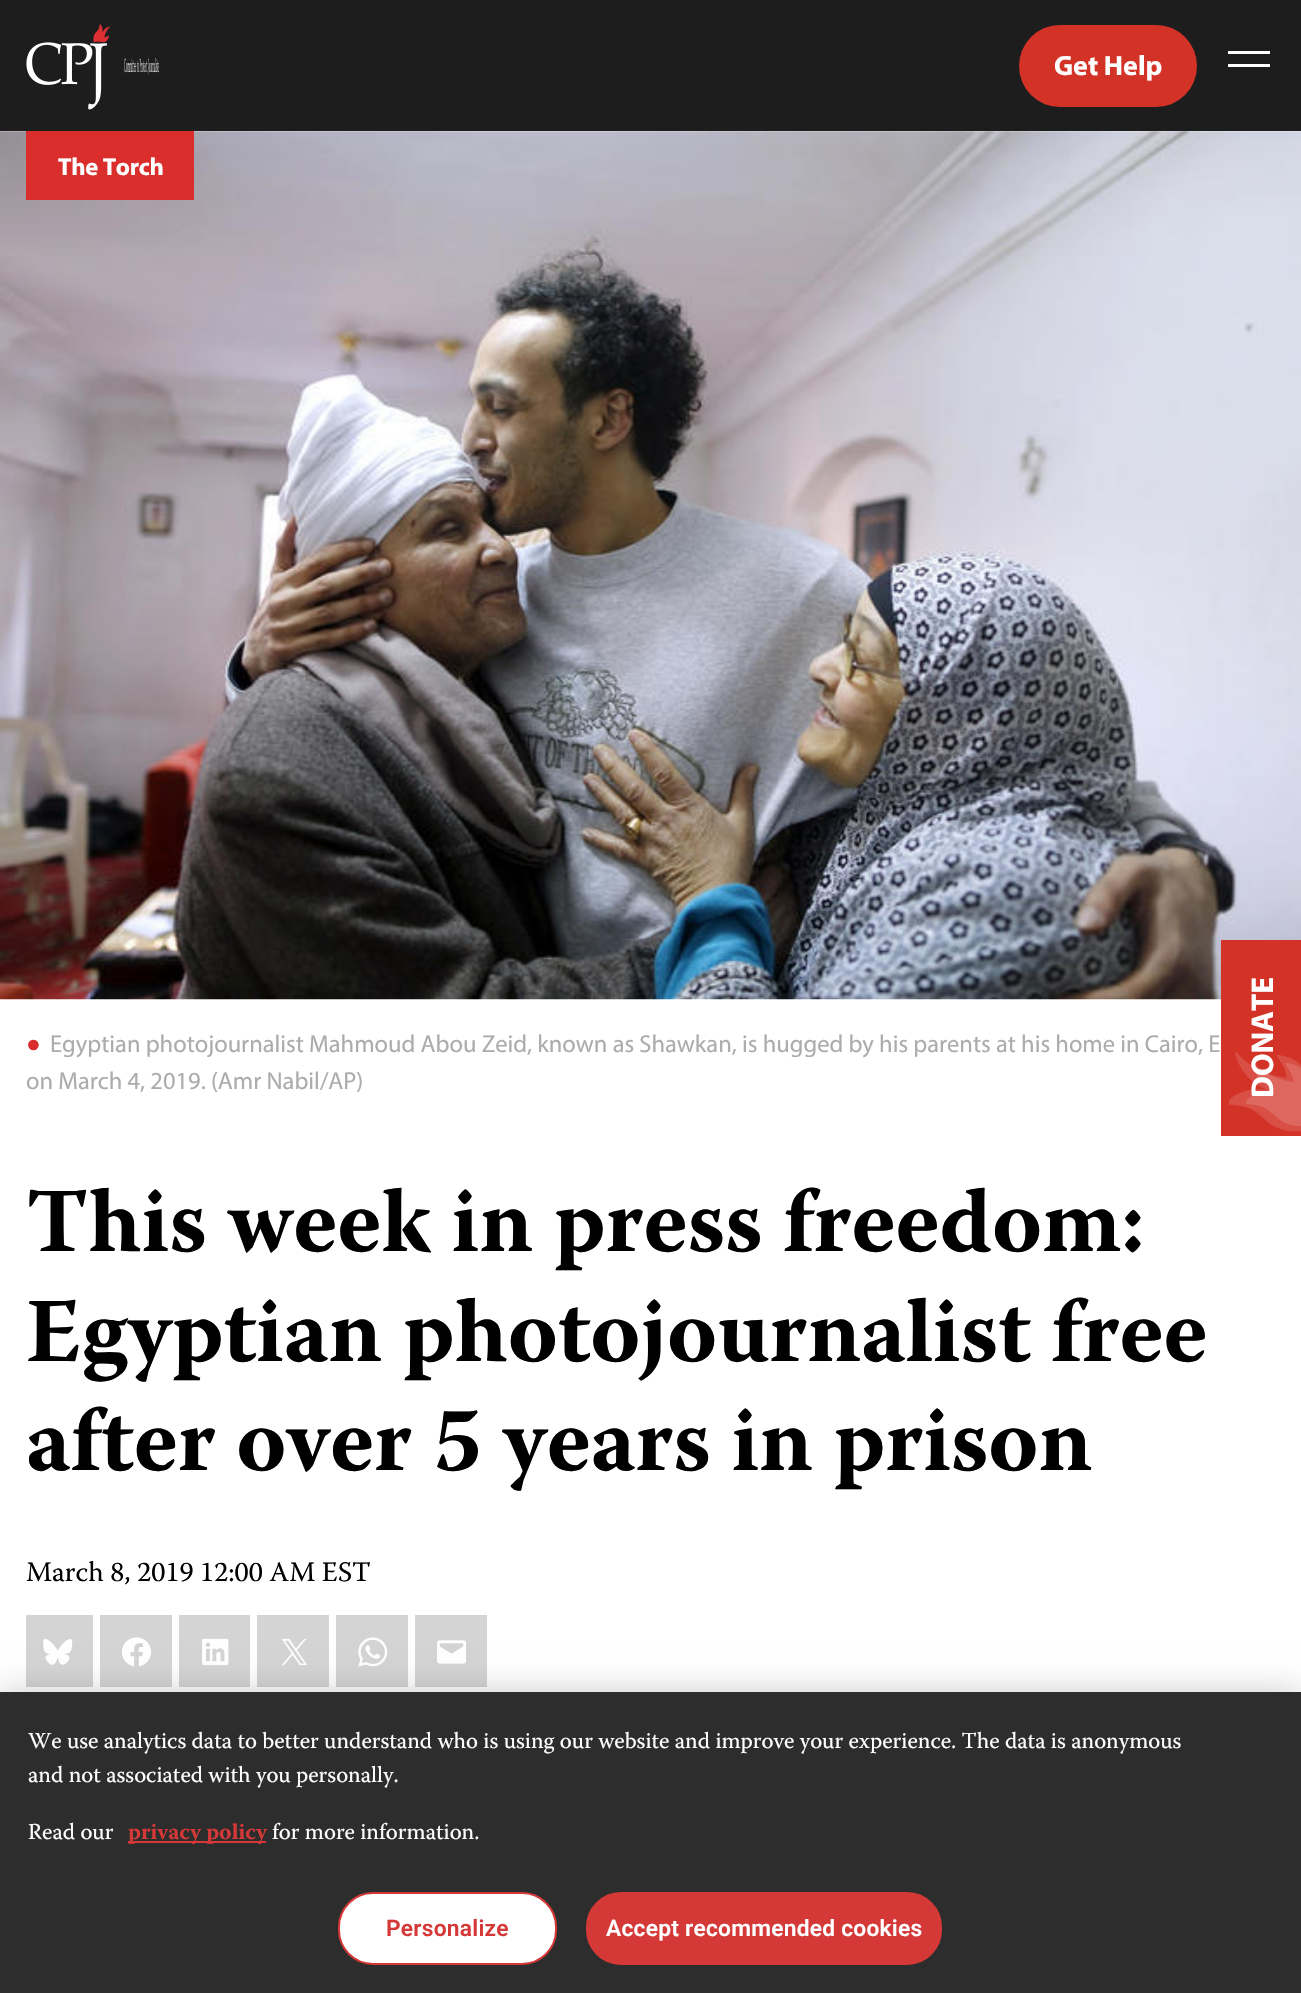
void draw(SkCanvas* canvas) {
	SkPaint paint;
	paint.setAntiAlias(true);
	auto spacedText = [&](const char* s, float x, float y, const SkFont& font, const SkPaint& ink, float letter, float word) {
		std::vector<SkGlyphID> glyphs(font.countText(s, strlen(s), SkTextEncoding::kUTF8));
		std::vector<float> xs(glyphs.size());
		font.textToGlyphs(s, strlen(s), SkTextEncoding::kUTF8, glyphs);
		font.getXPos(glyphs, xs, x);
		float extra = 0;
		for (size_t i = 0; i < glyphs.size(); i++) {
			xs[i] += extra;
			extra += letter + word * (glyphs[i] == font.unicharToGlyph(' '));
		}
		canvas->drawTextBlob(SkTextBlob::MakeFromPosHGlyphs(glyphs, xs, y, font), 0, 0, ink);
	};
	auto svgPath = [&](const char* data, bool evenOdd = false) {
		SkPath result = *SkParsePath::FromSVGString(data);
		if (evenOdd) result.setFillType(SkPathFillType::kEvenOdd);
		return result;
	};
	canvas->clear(0xffffffff);
	paint.setColor(0xff1d1d1d);
	canvas->drawRect(SkRect::MakeXYWH(0, 0, 1301, 131), paint);
	canvas->drawImageRect(SkImages::DeferredFromEncodedData(SkData::MakeFromFileName("img1.png")), SkRect::MakeXYWH(26, 24, 84, 86), SkSamplingOptions());
	canvas->drawImageRect(SkImages::DeferredFromEncodedData(SkData::MakeFromFileName("img2.png")), SkRect::MakeXYWH(124, 58, 35, 17), SkSamplingOptions());
	paint.setColor(0xffd33227);
	canvas->drawRoundRect(SkRect::MakeXYWH(1019, 25, 178, 82), 41, 41, paint);
	SkFont f1(fontMgr->matchFamilyStyle("Myriad", SkFontStyle::Bold()), 28);
	f1.setSubpixel(true);
	paint.setColor(0xffffffff);
	canvas->drawString("Get Help", 1054, 75, f1, paint);
	canvas->save();
	canvas->clipRect(SkRect::MakeXYWH(1222, 39, 56, 28));
	canvas->drawPath(svgPath("M1270 80H1228V77H1270ZM1228 54H1270V51H1228ZM1270 64H1228V67H1270Z"), paint);
	canvas->restore();
	canvas->drawImageRect(SkImages::DeferredFromEncodedData(SkData::MakeFromFileName("img3.png")), SkRect::MakeXYWH(0, 131, 1301, 869), SkSamplingOptions());
	paint.setColor(0xffda2e2c);
	canvas->drawRect(SkRect::MakeXYWH(26, 131, 168, 69), paint);
	SkFont f2(fontMgr->matchFamilyStyle("Myriad", SkFontStyle::Bold()), 24.5);
	f2.setSubpixel(true);
	paint.setColor(0xffffffff);
	spacedText("The Torch", 58, 175, f2, paint, -0.25, 0);
	SkFont f3(fontMgr->matchFamilyStyle("Liberation Sans", SkFontStyle::Normal()), 24.5);
	f3.setSubpixel(true);
	paint.setColor(0xffda2e2c);
	canvas->drawString("●", 26, 1052, f3, paint);
	SkFont f4(fontMgr->matchFamilyStyle("Myriad", SkFontStyle::Normal()), 24.5);
	f4.setSubpixel(true);
	paint.setColor(0xffacacac);
	canvas->drawString("Egyptian photojournalist Mahmoud Abou Zeid, known as Shawkan, is hugged by his parents at his home in Cairo, E", 50, 1052, f4, paint);
	canvas->drawString("on March 4, 2019. (Amr Nabil/AP)", 26, 1089, f4, paint);
	SkFont f5(fontMgr->matchFamilyStyle("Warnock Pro", SkFontStyle::Bold()), 91.1);
	f5.setSubpixel(true);
	paint.setColor(0xff000000);
	canvas->drawString("This week in press freedom:", 26, 1251, f5, paint);
	canvas->drawString("Egyptian photojournalist free", 26, 1361, f5, paint);
	canvas->drawString("after over 5 years in prison", 26, 1470, f5, paint);
	SkFont f6(fontMgr->matchFamilyStyle("Warnock Pro", SkFontStyle::Normal()), 28);
	f6.setSubpixel(true);
	canvas->drawString("March 8, 2019 12:00 AM EST", 26, 1581, f6, paint);
	paint.setColor(0xffd4d4d4);
	canvas->drawRect(SkRect::MakeXYWH(26, 1615, 67, 72), paint);
	canvas->drawImageRect(SkImages::DeferredFromEncodedData(SkData::MakeFromFileName("img4.png")), SkRect::MakeXYWH(43, 1639, 30, 26), SkSamplingOptions());
	canvas->drawRect(SkRect::MakeXYWH(100, 1615, 72, 72), paint);
	canvas->drawImageRect(SkImages::DeferredFromEncodedData(SkData::MakeFromFileName("img5.png")), SkRect::MakeXYWH(122, 1637, 29, 30), SkSamplingOptions());
	canvas->drawRect(SkRect::MakeXYWH(179, 1615, 71, 72), paint);
	canvas->drawImageRect(SkImages::DeferredFromEncodedData(SkData::MakeFromFileName("img6.png")), SkRect::MakeXYWH(202, 1638, 27, 28), SkSamplingOptions());
	canvas->drawRect(SkRect::MakeXYWH(257, 1615, 72, 72), paint);
	canvas->drawImageRect(SkImages::DeferredFromEncodedData(SkData::MakeFromFileName("img7.png")), SkRect::MakeXYWH(282, 1638, 25, 28), SkSamplingOptions());
	canvas->drawRect(SkRect::MakeXYWH(336, 1615, 72, 72), paint);
	canvas->drawImageRect(SkImages::DeferredFromEncodedData(SkData::MakeFromFileName("img8.png")), SkRect::MakeXYWH(358, 1637, 30, 30), SkSamplingOptions());
	canvas->drawRect(SkRect::MakeXYWH(415, 1615, 72, 72), paint);
	canvas->drawImageRect(SkImages::DeferredFromEncodedData(SkData::MakeFromFileName("img9.png")), SkRect::MakeXYWH(437, 1640, 29, 24), SkSamplingOptions());
	paint.setColor(0xffd33227);
	canvas->drawRect(SkRect::MakeXYWH(1221, 940, 80, 196), paint);
	canvas->drawImageRect(SkImages::DeferredFromEncodedData(SkData::MakeFromFileName("img10.png")), SkRect::MakeXYWH(1229, 1052, 72, 80), SkSamplingOptions());
	canvas->drawImageRect(SkImages::DeferredFromEncodedData(SkData::MakeFromFileName("img11.png")), SkRect::MakeXYWH(1246, 1061, 55, 65), SkSamplingOptions());
	SkFont f7(fontMgr->matchFamilyStyle("Myriad", SkFontStyle::Bold()), 31.5);
	f7.setSubpixel(true);
	paint.setColor(0xffffffff);
	canvas->save();
	canvas->rotate(-90, 1273, 1098);
	canvas->drawString("DONATE", 1273, 1098, f7, paint);
	canvas->restore();
	paint.setColor(0x33000000);
	paint.setMaskFilter(SkMaskFilter::MakeBlur(kNormal_SkBlurStyle, 16));
	canvas->drawRect(SkRect::MakeXYWH(0, 1692, 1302, 301), paint);
	paint.setMaskFilter(nullptr);
	paint.setColor(0xff2d2d2d);
	canvas->drawRect(SkRect::MakeXYWH(0, 1692, 1301, 301), paint);
	SkFont f8(fontMgr->matchFamilyStyle("Warnock Pro", SkFontStyle::Normal()), 22.75);
	f8.setSubpixel(true);
	paint.setColor(0xffffffff);
	canvas->drawString("We use analytics data to better understand who is using our website and improve your experience. The data is anonymous", 28, 1748, f8, paint);
	canvas->drawString("and not associated with you personally.", 28, 1782, f8, paint);
	canvas->drawString("Read our", 28, 1839, f8, paint);
	paint.setColor(0xffd43837);
	canvas->drawRect(SkRect::MakeXYWH(128, 1841, 138, 2), paint);
	SkFont f9(fontMgr->matchFamilyStyle("Warnock Pro", SkFontStyle::Bold()), 22.75);
	f9.setSubpixel(true);
	canvas->drawString("privacy policy", 128, 1839, f9, paint);
	paint.setColor(0xffffffff);
	canvas->drawString("for more information.", 272, 1839, f8, paint);
	canvas->drawRoundRect(SkRect::MakeXYWH(339, 1893, 217, 71), 34, 34, paint);
	paint.setStroke(true);
	paint.setStrokeWidth(2);
	paint.setColor(0xffd43837);
	canvas->drawRoundRect(SkRect::MakeXYWH(339, 1893, 217, 71), 34, 34, paint);
	SkFont f10(fontMgr->matchFamilyStyle("Roboto", SkFontStyle(600, SkFontStyle::kNormal_Width, SkFontStyle::kUpright_Slant)), 22.75);
	f10.setSubpixel(true);
	paint.setStroke(false);
	spacedText("Personalize", 386, 1936, f10, paint, 0.25, 0);
	canvas->drawRoundRect(SkRect::MakeXYWH(587, 1893, 354, 71), 34, 34, paint);
	paint.setStroke(true);
	canvas->drawRoundRect(SkRect::MakeXYWH(587, 1893, 354, 71), 34, 34, paint);
	paint.setStroke(false);
	paint.setColor(0xffffffff);
	spacedText("Accept recommended cookies", 606, 1936, f10, paint, 0.25, 0);
}
